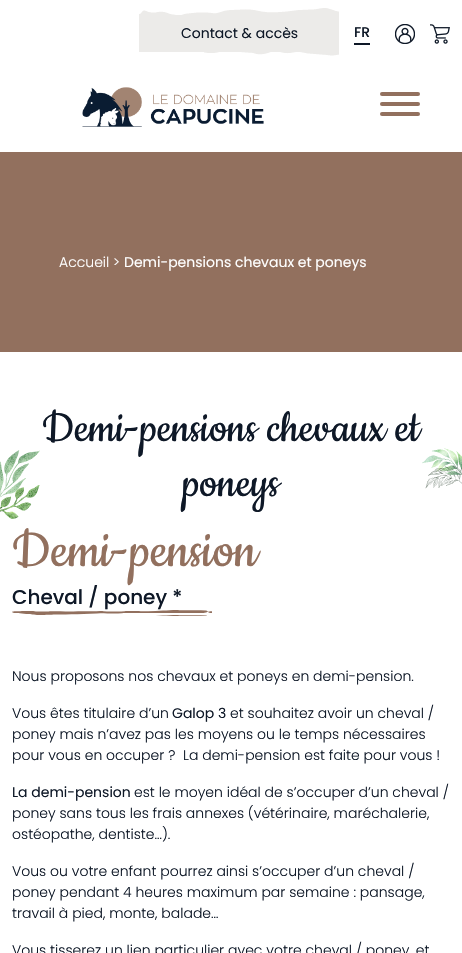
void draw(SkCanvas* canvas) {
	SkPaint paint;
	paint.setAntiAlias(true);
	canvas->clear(0xffffffff);
	paint.setColor(0xffecebe9);
	canvas->drawRect(SkRect::MakeXYWH(139, 15, 200, 37), paint);
	canvas->drawImageRect(SkImages::DeferredFromEncodedData(SkData::MakeFromFileName("img1.png")), SkRect::MakeXYWH(139, 8, 200, 7), SkSamplingOptions());
	SkFont f1(fontMgr->matchFamilyStyle("Poppins", SkFontStyle::Normal()), 14);
	f1.setSubpixel(true);
	paint.setColor(0xff0e1827);
	canvas->drawString("Contact & accès", 181, 38, f1, paint);
	canvas->drawImageRect(SkImages::DeferredFromEncodedData(SkData::MakeFromFileName("img2.png")), SkRect::MakeXYWH(204, 52, 135, 4), SkSamplingOptions());
	canvas->drawRect(SkRect::MakeXYWH(354, 43, 16, 2), paint);
	SkFont f2(fontMgr->matchFamilyStyle("Poppins", SkFontStyle(500, SkFontStyle::kNormal_Width, SkFontStyle::kUpright_Slant)), 14);
	f2.setSubpixel(true);
	canvas->drawString("FR", 354, 37, f2, paint);
	canvas->drawImageRect(SkImages::DeferredFromEncodedData(SkData::MakeFromFileName("img3.png")), SkRect::MakeXYWH(395, 24, 20, 20), SkSamplingOptions());
	canvas->drawImageRect(SkImages::DeferredFromEncodedData(SkData::MakeFromFileName("img4.png")), SkRect::MakeXYWH(430, 24, 20, 20), SkSamplingOptions());
	canvas->drawImageRect(SkImages::DeferredFromEncodedData(SkData::MakeFromFileName("img5.png")), SkRect::MakeXYWH(82, 87, 182, 40), SkSamplingOptions());
	paint.setColor(0xff92705e);
	canvas->drawRoundRect(SkRect::MakeXYWH(380, 102, 40, 4), 2, 2, paint);
	canvas->drawRoundRect(SkRect::MakeXYWH(380, 92, 40, 4), 2, 2, paint);
	canvas->drawRoundRect(SkRect::MakeXYWH(380, 112, 40, 4), 2, 2, paint);
	canvas->drawRect(SkRect::MakeXYWH(0, 152, 462, 200), paint);
	SkFont f3(fontMgr->matchFamilyStyle("Poppins", SkFontStyle(300, SkFontStyle::kNormal_Width, SkFontStyle::kUpright_Slant)), 14);
	f3.setSubpixel(true);
	paint.setColor(0xffffffff);
	canvas->drawString("Accueil >", 59, 267, f3, paint);
	canvas->drawString("Demi-pensions chevaux et poneys", 124, 267, f1, paint);
	canvas->drawImageRect(SkImages::DeferredFromEncodedData(SkData::MakeFromFileName("img6.png")), SkRect::MakeXYWH(0, 450, 40, 48), SkSamplingOptions());
	SkFont f4(fontMgr->matchFamilyStyle("Cookie", SkFontStyle::Normal()), 50);
	f4.setSubpixel(true);
	paint.setColor(0xff0e1827);
	canvas->drawString("Demi-pensions chevaux et", 42, 441, f4, paint);
	canvas->drawString("poneys", 182, 496, f4, paint);
	canvas->drawImageRect(SkImages::DeferredFromEncodedData(SkData::MakeFromFileName("img7.png")), SkRect::MakeXYWH(422, 448, 40, 27), SkSamplingOptions());
	canvas->drawImageRect(SkImages::DeferredFromEncodedData(SkData::MakeFromFileName("img8.png")), SkRect::MakeXYWH(425, 465, 37, 24), SkSamplingOptions());
	canvas->drawImageRect(SkImages::DeferredFromEncodedData(SkData::MakeFromFileName("img9.png")), SkRect::MakeXYWH(0, 485, 40, 34), SkSamplingOptions());
	SkFont f5(fontMgr->matchFamilyStyle("Cookie", SkFontStyle::Normal()), 60);
	f5.setSubpixel(true);
	paint.setColor(0xff92705e);
	canvas->drawString("Demi-pension", 12, 566, f5, paint);
	SkFont f6(fontMgr->matchFamilyStyle("Poppins", SkFontStyle(500, SkFontStyle::kNormal_Width, SkFontStyle::kUpright_Slant)), 20);
	f6.setSubpixel(true);
	paint.setColor(0xff0e1827);
	canvas->drawString("Cheval / poney *", 12, 604, f6, paint);
	canvas->drawImageRect(SkImages::DeferredFromEncodedData(SkData::MakeFromFileName("img10.png")), SkRect::MakeXYWH(12, 610, 200, 6), SkSamplingOptions());
	canvas->drawString("Nous proposons nos chevaux et poneys en demi-pension.", 12, 681, f3, paint);
	canvas->drawString("Vous êtes titulaire d’un", 12, 718, f3, paint);
	canvas->drawString("Galop 3", 172, 718, f1, paint);
	canvas->drawString("et souhaitez avoir un cheval /", 230, 718, f3, paint);
	canvas->drawString("poney mais n’avez pas les moyens ou le temps nécessaires", 12, 739, f3, paint);
	canvas->drawString("pour vous en occuper ?  La demi-pension est faite pour vous !", 12, 760, f3, paint);
	canvas->drawString("La demi-pension", 12, 797, f1, paint);
	canvas->drawString("est le moyen idéal de s’occuper d’un cheval /", 134, 797, f3, paint);
	canvas->drawString("poney sans tous les frais annexes (vétérinaire, maréchalerie,", 12, 818, f3, paint);
	canvas->drawString("ostéopathe, dentiste…).", 12, 839, f3, paint);
	canvas->drawString("Vous ou votre enfant pourrez ainsi s’occuper d’un cheval /", 12, 876, f3, paint);
	canvas->drawString("poney pendant 4 heures maximum par semaine : pansage,", 12, 897, f3, paint);
	canvas->drawString("travail à pied, monte, balade…", 12, 918, f3, paint);
	canvas->drawString("Vous tisserez un lien particulier avec votre cheval / poney, et", 12, 955, f3, paint);
}
